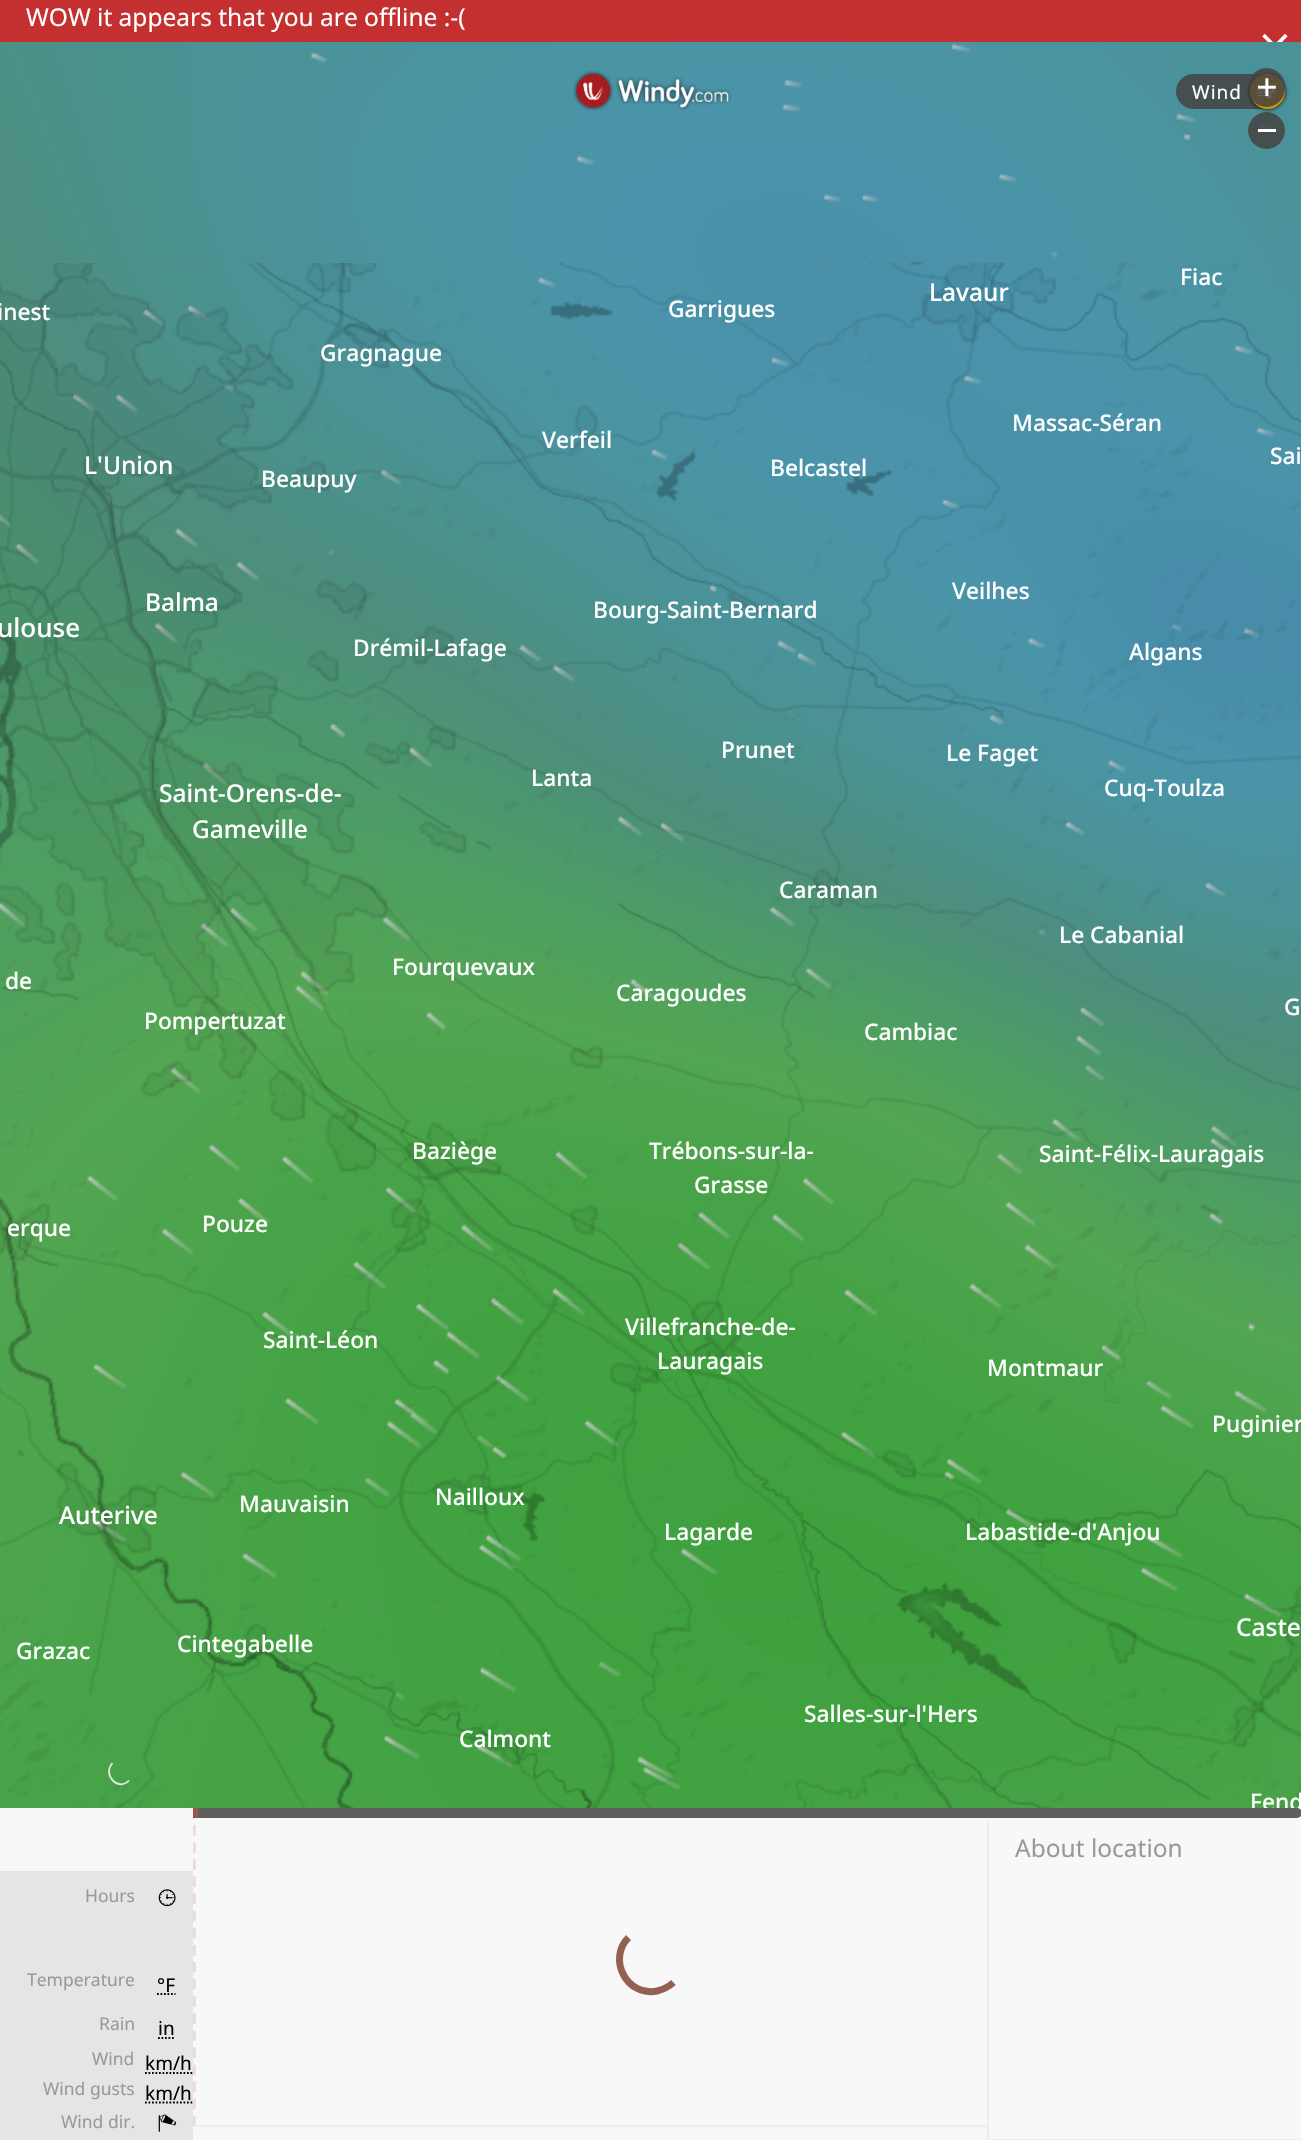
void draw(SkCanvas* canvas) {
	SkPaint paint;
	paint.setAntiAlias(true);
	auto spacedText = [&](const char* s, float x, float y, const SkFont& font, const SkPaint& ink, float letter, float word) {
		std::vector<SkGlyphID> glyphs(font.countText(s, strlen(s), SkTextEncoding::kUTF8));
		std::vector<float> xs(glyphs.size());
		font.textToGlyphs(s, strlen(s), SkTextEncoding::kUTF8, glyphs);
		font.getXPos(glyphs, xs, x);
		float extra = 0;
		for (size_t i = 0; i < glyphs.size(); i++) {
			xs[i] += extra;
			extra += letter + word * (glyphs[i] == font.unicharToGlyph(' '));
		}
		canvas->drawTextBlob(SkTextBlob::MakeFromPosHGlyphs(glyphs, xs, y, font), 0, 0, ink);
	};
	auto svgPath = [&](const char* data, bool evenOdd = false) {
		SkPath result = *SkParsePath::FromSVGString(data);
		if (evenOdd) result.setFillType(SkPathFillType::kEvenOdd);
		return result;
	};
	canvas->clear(0xff808080);
	paint.setColor(0xffc42f2f);
	canvas->drawRect(SkRect::MakeXYWH(0, 0, 1301, 42), paint);
	SkFont f1(fontMgr->matchFamilyStyle("Noto Sans", SkFontStyle::Normal()), 24.5);
	f1.setSubpixel(true);
	paint.setColor(0xffffffff);
	canvas->drawString("WOW it appears that you are offline :-(", 26, 26, f1, paint);
	canvas->drawImageRect(SkImages::DeferredFromEncodedData(SkData::MakeFromFileName("img1.png")), SkRect::MakeXYWH(1262, 33, 26, 9), SkSamplingOptions());
	canvas->drawImageRect(SkImages::DeferredFromEncodedData(SkData::MakeFromFileName("img15.png")), SkRect::MakeXYWH(376, 710, 449, 449), SkSamplingOptions());
	canvas->drawImageRect(SkImages::DeferredFromEncodedData(SkData::MakeFromFileName("img16.png")), SkRect::MakeXYWH(824, 710, 449, 449), SkSamplingOptions());
	canvas->drawImageRect(SkImages::DeferredFromEncodedData(SkData::MakeFromFileName("img11.png")), SkRect::MakeXYWH(376, 262, 449, 449), SkSamplingOptions());
	canvas->drawImageRect(SkImages::DeferredFromEncodedData(SkData::MakeFromFileName("img14.png")), SkRect::MakeXYWH(0, 710, 376, 449), SkSamplingOptions());
	canvas->drawImageRect(SkImages::DeferredFromEncodedData(SkData::MakeFromFileName("img10.png")), SkRect::MakeXYWH(0, 262, 377, 449), SkSamplingOptions());
	canvas->drawImageRect(SkImages::DeferredFromEncodedData(SkData::MakeFromFileName("img12.png")), SkRect::MakeXYWH(824, 262, 449, 449), SkSamplingOptions());
	canvas->drawImageRect(SkImages::DeferredFromEncodedData(SkData::MakeFromFileName("img7.png")), SkRect::MakeXYWH(376, 42, 449, 221), SkSamplingOptions());
	canvas->drawImageRect(SkImages::DeferredFromEncodedData(SkData::MakeFromFileName("img6.png")), SkRect::MakeXYWH(0, 42, 376, 221), SkSamplingOptions());
	canvas->drawImageRect(SkImages::DeferredFromEncodedData(SkData::MakeFromFileName("img19.png")), SkRect::MakeXYWH(376, 1158, 449, 449), SkSamplingOptions());
	canvas->drawImageRect(SkImages::DeferredFromEncodedData(SkData::MakeFromFileName("img20.png")), SkRect::MakeXYWH(824, 1158, 449, 449), SkSamplingOptions());
	canvas->drawImageRect(SkImages::DeferredFromEncodedData(SkData::MakeFromFileName("img17.png")), SkRect::MakeXYWH(1272, 710, 29, 449), SkSamplingOptions());
	canvas->drawImageRect(SkImages::DeferredFromEncodedData(SkData::MakeFromFileName("img13.png")), SkRect::MakeXYWH(1272, 262, 29, 449), SkSamplingOptions());
	canvas->drawImageRect(SkImages::DeferredFromEncodedData(SkData::MakeFromFileName("img8.png")), SkRect::MakeXYWH(824, 42, 449, 221), SkSamplingOptions());
	canvas->drawImageRect(SkImages::DeferredFromEncodedData(SkData::MakeFromFileName("img9.png")), SkRect::MakeXYWH(1272, 42, 29, 221), SkSamplingOptions());
	canvas->drawImageRect(SkImages::DeferredFromEncodedData(SkData::MakeFromFileName("img18.png")), SkRect::MakeXYWH(0, 1158, 377, 449), SkSamplingOptions());
	canvas->drawImageRect(SkImages::DeferredFromEncodedData(SkData::MakeFromFileName("img21.png")), SkRect::MakeXYWH(1272, 1158, 29, 449), SkSamplingOptions());
	canvas->drawImageRect(SkImages::DeferredFromEncodedData(SkData::MakeFromFileName("img23.png")), SkRect::MakeXYWH(376, 1606, 449, 202), SkSamplingOptions());
	canvas->drawImageRect(SkImages::DeferredFromEncodedData(SkData::MakeFromFileName("img22.png")), SkRect::MakeXYWH(0, 1606, 377, 202), SkSamplingOptions());
	canvas->drawImageRect(SkImages::DeferredFromEncodedData(SkData::MakeFromFileName("img24.png")), SkRect::MakeXYWH(824, 1606, 449, 202), SkSamplingOptions());
	canvas->drawImageRect(SkImages::DeferredFromEncodedData(SkData::MakeFromFileName("img25.png")), SkRect::MakeXYWH(1272, 1606, 29, 202), SkSamplingOptions());
	canvas->drawImageRect(SkImages::DeferredFromEncodedData(SkData::MakeFromFileName("img26.png")), SkRect::MakeXYWH(0, 43, 1282, 1747), SkSamplingOptions());
	canvas->drawImageRect(SkImages::DeferredFromEncodedData(SkData::MakeFromFileName("img2.png")), SkRect::MakeXYWH(573, 70, 41, 41), SkSamplingOptions());
	canvas->drawImageRect(SkImages::DeferredFromEncodedData(SkData::MakeFromFileName("img3.png")), SkRect::MakeXYWH(615, 76, 117, 35), SkSamplingOptions());
	paint.setColor(0xd6444141);
	canvas->drawRoundRect(SkRect::MakeXYWH(1176, 74, 109, 35), 17.5, 17.5, paint);
	SkFont f2(fontMgr->matchFamilyStyle("Noto Sans", SkFontStyle::Normal()), 19);
	f2.setSubpixel(true);
	paint.setColor(0xffffffff);
	spacedText("Wind", 1192, 99, f2, paint, 1, 0);
	canvas->save();
	canvas->clipPath(svgPath("M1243 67H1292V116H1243ZM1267.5 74C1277 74 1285 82 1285 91.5C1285 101 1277 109 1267.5 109C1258 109 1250 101 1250 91.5C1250 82 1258 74 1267.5 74Z", true), true);
	paint.setColor(0xff000000);
	paint.setMaskFilter(SkMaskFilter::MakeBlur(kNormal_SkBlurStyle, 2));
	canvas->drawRoundRect(SkRect::MakeXYWH(1250, 74, 35, 35), 17.5, 17.5, paint);
	paint.setMaskFilter(nullptr);
	canvas->restore();
	paint.setColor(0xffd49500);
	canvas->drawCircle(1267.5, 91.5, 17.5, paint);
	canvas->drawImageRect(SkImages::DeferredFromEncodedData(SkData::MakeFromFileName("img4.png")), SkRect::MakeXYWH(1256, 88, 20, 12), SkSamplingOptions());
	paint.setColor(0xd6444141);
	canvas->drawRoundRect(SkRect::MakeXYWH(1248, 68, 37, 39), 18.5, 18.5, paint);
	canvas->drawImageRect(SkImages::DeferredFromEncodedData(SkData::MakeFromFileName("img5.png")), SkRect::MakeXYWH(1257, 78, 19, 19), SkSamplingOptions());
	canvas->drawCircle(1266.5, 130.5, 18.5, paint);
	paint.setColor(0xffffffff);
	canvas->drawRect(SkRect::MakeXYWH(1258, 129, 18, 3), paint);
	canvas->drawImageRect(SkImages::DeferredFromEncodedData(SkData::MakeFromFileName("img27.png")), SkRect::MakeXYWH(0, 263, 376, 448), SkSamplingOptions());
	canvas->drawImageRect(SkImages::DeferredFromEncodedData(SkData::MakeFromFileName("img32.png")), SkRect::MakeXYWH(376, 710, 449, 449), SkSamplingOptions());
	canvas->drawImageRect(SkImages::DeferredFromEncodedData(SkData::MakeFromFileName("img33.png")), SkRect::MakeXYWH(824, 710, 448, 449), SkSamplingOptions());
	canvas->drawImageRect(SkImages::DeferredFromEncodedData(SkData::MakeFromFileName("img28.png")), SkRect::MakeXYWH(376, 262, 449, 449), SkSamplingOptions());
	canvas->drawImageRect(SkImages::DeferredFromEncodedData(SkData::MakeFromFileName("img29.png")), SkRect::MakeXYWH(824, 262, 449, 449), SkSamplingOptions());
	canvas->drawImageRect(SkImages::DeferredFromEncodedData(SkData::MakeFromFileName("img30.png")), SkRect::MakeXYWH(1272, 392, 29, 319), SkSamplingOptions());
	canvas->drawImageRect(SkImages::DeferredFromEncodedData(SkData::MakeFromFileName("img31.png")), SkRect::MakeXYWH(0, 711, 376, 448), SkSamplingOptions());
	canvas->drawImageRect(SkImages::DeferredFromEncodedData(SkData::MakeFromFileName("img34.png")), SkRect::MakeXYWH(1272, 711, 29, 380), SkSamplingOptions());
	canvas->drawImageRect(SkImages::DeferredFromEncodedData(SkData::MakeFromFileName("img35.png")), SkRect::MakeXYWH(0, 1159, 376, 448), SkSamplingOptions());
	canvas->drawImageRect(SkImages::DeferredFromEncodedData(SkData::MakeFromFileName("img36.png")), SkRect::MakeXYWH(376, 1158, 449, 449), SkSamplingOptions());
	canvas->drawImageRect(SkImages::DeferredFromEncodedData(SkData::MakeFromFileName("img37.png")), SkRect::MakeXYWH(824, 1158, 449, 449), SkSamplingOptions());
	canvas->drawImageRect(SkImages::DeferredFromEncodedData(SkData::MakeFromFileName("img38.png")), SkRect::MakeXYWH(1272, 1177, 29, 430), SkSamplingOptions());
	canvas->drawImageRect(SkImages::DeferredFromEncodedData(SkData::MakeFromFileName("img39.png")), SkRect::MakeXYWH(0, 1607, 376, 201), SkSamplingOptions());
	canvas->drawImageRect(SkImages::DeferredFromEncodedData(SkData::MakeFromFileName("img40.png")), SkRect::MakeXYWH(376, 1606, 449, 202), SkSamplingOptions());
	canvas->drawImageRect(SkImages::DeferredFromEncodedData(SkData::MakeFromFileName("img41.png")), SkRect::MakeXYWH(824, 1606, 449, 202), SkSamplingOptions());
	canvas->drawImageRect(SkImages::DeferredFromEncodedData(SkData::MakeFromFileName("img42.png")), SkRect::MakeXYWH(1272, 1607, 29, 201), SkSamplingOptions());
	SkFont f3(fontMgr->matchFamilyStyle("Noto Sans", SkFontStyle(500, SkFontStyle::kNormal_Width, SkFontStyle::kUpright_Slant)), 22.75);
	f3.setSubpixel(true);
	canvas->drawString("inest", -3, 320, f3, paint);
	SkFont f4(fontMgr->matchFamilyStyle("Noto Sans", SkFontStyle(500, SkFontStyle::kNormal_Width, SkFontStyle::kUpright_Slant)), 24.5);
	f4.setSubpixel(true);
	canvas->drawString("L'Union", 84, 474, f4, paint);
	canvas->drawString("Beaupuy", 261, 487, f3, paint);
	canvas->drawString("Balma", 145, 611, f4, paint);
	SkFont f5(fontMgr->matchFamilyStyle("Noto Sans", SkFontStyle(500, SkFontStyle::kNormal_Width, SkFontStyle::kUpright_Slant)), 26);
	f5.setSubpixel(true);
	canvas->drawString("ulouse", -3, 637, f5, paint);
	canvas->drawString("Garrigues", 668, 317, f3, paint);
	canvas->drawString("Gragnague", 320, 361, f3, paint);
	canvas->drawString("Verfeil", 542, 448, f3, paint);
	canvas->drawString("Belcastel", 770, 476, f3, paint);
	canvas->drawString("Bourg-Saint-Bernard", 593, 618, f3, paint);
	canvas->drawString("Drémil-Lafage", 353, 656, f3, paint);
	canvas->drawString("Fiac", 1180, 285, f3, paint);
	canvas->drawString("Lavaur", 929, 301, f4, paint);
	canvas->drawString("Massac-Séran", 1012, 431, f3, paint);
	canvas->drawString("Veilhes", 952, 599, f3, paint);
	canvas->drawString("Algans", 1129, 660, f3, paint);
	canvas->drawString("Sai", 1270, 464, f3, paint);
	canvas->drawString("Saint-Orens-de-", 159, 802, f4, paint);
	canvas->drawString("Gameville", 192, 838, f4, paint);
	canvas->drawString("de", 5, 989, f3, paint);
	canvas->drawString("Pompertuzat", 144, 1029, f3, paint);
	canvas->drawString("Prunet", 721, 758, f3, paint);
	canvas->drawString("Lanta", 531, 786, f3, paint);
	canvas->drawString("Fourquevaux", 392, 975, f3, paint);
	canvas->drawString("Caragoudes", 616, 1001, f3, paint);
	canvas->drawString("Baziège", 412, 1159, f3, paint);
	canvas->drawString("Le Faget", 946, 761, f3, paint);
	canvas->drawString("Cuq-Toulza", 1104, 796, f3, paint);
	canvas->drawString("Caraman", 779, 898, f3, paint);
	canvas->drawString("Le Cabanial", 1059, 943, f3, paint);
	canvas->drawString("Cambiac", 864, 1040, f3, paint);
	canvas->drawString("G", 1284, 1015, f3, paint);
	canvas->drawString("erque", 7, 1236, f3, paint);
	canvas->drawString("Pouze", 202, 1232, f3, paint);
	canvas->drawString("Saint-Léon", 263, 1348, f3, paint);
	canvas->drawString("Auterive", 59, 1524, f4, paint);
	canvas->drawString("Mauvaisin", 239, 1512, f3, paint);
	canvas->drawString("Trébons-sur-la-", 649, 1159, f3, paint);
	canvas->drawString("Grasse", 694, 1193, f3, paint);
	canvas->drawString("Villefranche-de-", 625, 1335, f3, paint);
	canvas->drawString("Lauragais", 657, 1369, f3, paint);
	canvas->drawString("Nailloux", 435, 1505, f3, paint);
	canvas->drawString("Lagarde", 664, 1540, f3, paint);
	canvas->drawString("Saint-Félix-Lauragais", 1039, 1162, f3, paint);
	canvas->drawString("Montmaur", 987, 1376, f3, paint);
	canvas->drawString("Puginier", 1212, 1432, f3, paint);
	canvas->drawString("Labastide-d'Anjou", 965, 1540, f3, paint);
	canvas->drawString("Grazac", 16, 1659, f3, paint);
	canvas->drawString("Cintegabelle", 177, 1652, f3, paint);
	canvas->drawString("Caste", 1236, 1636, f4, paint);
	canvas->drawString("Fend", 1250, 1810, f3, paint);
	canvas->drawString("Salles-sur-l'Hers", 804, 1722, f3, paint);
	canvas->drawString("Calmont", 459, 1747, f3, paint);
	paint.setStroke(true);
	paint.setStrokeWidth(1.8);
	paint.setColor(0xffe5e5e5);
	canvas->drawPath(svgPath("M129 1780.5C118 1792 102 1774.5 112.5 1763"), paint);
	paint.setStroke(false);
	paint.setColor(0xfff8f8f8);
	canvas->drawRect(SkRect::MakeXYWH(0, 1808, 1301, 332), paint);
	paint.setColor(0xff615e5e);
	canvas->drawRoundRect(SkRect::MakeXYWH(193, 1808, 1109, 10), 5, 5, paint);
	paint.setColor(0xff946051);
	canvas->drawRect(SkRect::MakeXYWH(193, 1808, 5, 10), paint);
	canvas->save();
	canvas->clipRect(SkRect::MakeXYWH(193, 1808, 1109, 332));
	paint.setStroke(true);
	paint.setStrokeWidth(3.5);
	paint.setColor(0x1f9d0300);
	paint.setPathEffect(SkDashPathEffect::Make({{10.5f, 6.61f}}, 0));
	canvas->drawPath(svgPath("M194 1808V2126"), paint);
	paint.setPathEffect(nullptr);
	canvas->restore();
	paint.setStroke(false);
	paint.setColor(0xffededed);
	canvas->drawRect(SkRect::MakeXYWH(987, 2139, 314, 1), paint);
	canvas->drawRect(SkRect::MakeXYWH(987, 1822, 2, 318), paint);
	canvas->drawRect(SkRect::MakeXYWH(193, 2125, 796, 2), paint);
	paint.setColor(0xff999999);
	canvas->drawString("About location", 1015, 1857, f1, paint);
	paint.setColor(0xffe5e5e5);
	canvas->drawRect(SkRect::MakeXYWH(0, 1871, 193, 269), paint);
	SkFont f6(fontMgr->matchFamilyStyle("Noto Sans", SkFontStyle::Normal()), 17.5);
	f6.setSubpixel(true);
	paint.setColor(0xff999999);
	canvas->drawString("Hours", 85, 1902, f6, paint);
	canvas->drawImageRect(SkImages::DeferredFromEncodedData(SkData::MakeFromFileName("img43.png")), SkRect::MakeXYWH(158, 1889, 18, 18), SkSamplingOptions());
	canvas->drawString("Temperature", 27, 1986, f6, paint);
	paint.setColor(0xff000000);
	canvas->drawString("°F", 157, 1992, f2, paint);
	paint.setStroke(true);
	paint.setStrokeWidth(1.8);
	paint.setPathEffect(SkDashPathEffect::Make({{1.75f, 1.75f}}, 0));
	canvas->drawPath(svgPath("M157 1994H175.5"), paint);
	paint.setPathEffect(nullptr);
	paint.setStroke(false);
	paint.setColor(0xff999999);
	canvas->drawString("Rain", 99, 2030, f6, paint);
	paint.setColor(0xff000000);
	canvas->drawString("in", 158, 2035, f2, paint);
	paint.setStroke(true);
	paint.setPathEffect(SkDashPathEffect::Make({{1.75f, 1.75f}}, 0));
	canvas->drawPath(svgPath("M158 2038H174.5"), paint);
	paint.setPathEffect(nullptr);
	paint.setStroke(false);
	paint.setColor(0xff999999);
	canvas->drawString("Wind", 92, 2065, f6, paint);
	paint.setColor(0xff000000);
	canvas->drawString("km/h", 145, 2070, f2, paint);
	paint.setStroke(true);
	paint.setPathEffect(SkDashPathEffect::Make({{1.75f, 1.75f}}, 0));
	canvas->drawPath(svgPath("M145 2073H192.5"), paint);
	paint.setPathEffect(nullptr);
	paint.setStroke(false);
	paint.setColor(0xff999999);
	canvas->drawString("Wind gusts", 43, 2095, f6, paint);
	paint.setColor(0xff000000);
	canvas->drawString("km/h", 145, 2100, f2, paint);
	paint.setStroke(true);
	paint.setPathEffect(SkDashPathEffect::Make({{1.75f, 1.75f}}, 0));
	canvas->drawPath(svgPath("M145 2102.5H192.5"), paint);
	paint.setPathEffect(nullptr);
	paint.setStroke(false);
	paint.setColor(0xff999999);
	canvas->drawString("Wind dir.", 61, 2128, f6, paint);
	canvas->drawImageRect(SkImages::DeferredFromEncodedData(SkData::MakeFromFileName("img44.png")), SkRect::MakeXYWH(158, 2114, 19, 18), SkSamplingOptions());
	paint.setStroke(true);
	paint.setStrokeWidth(7);
	paint.setColor(0xff946051);
	canvas->drawPath(svgPath("M673.5 1982.5C669 1986.5 663 1989.5 657 1991C627 1997 607 1959.5 628.5 1937.5"), paint);
}
